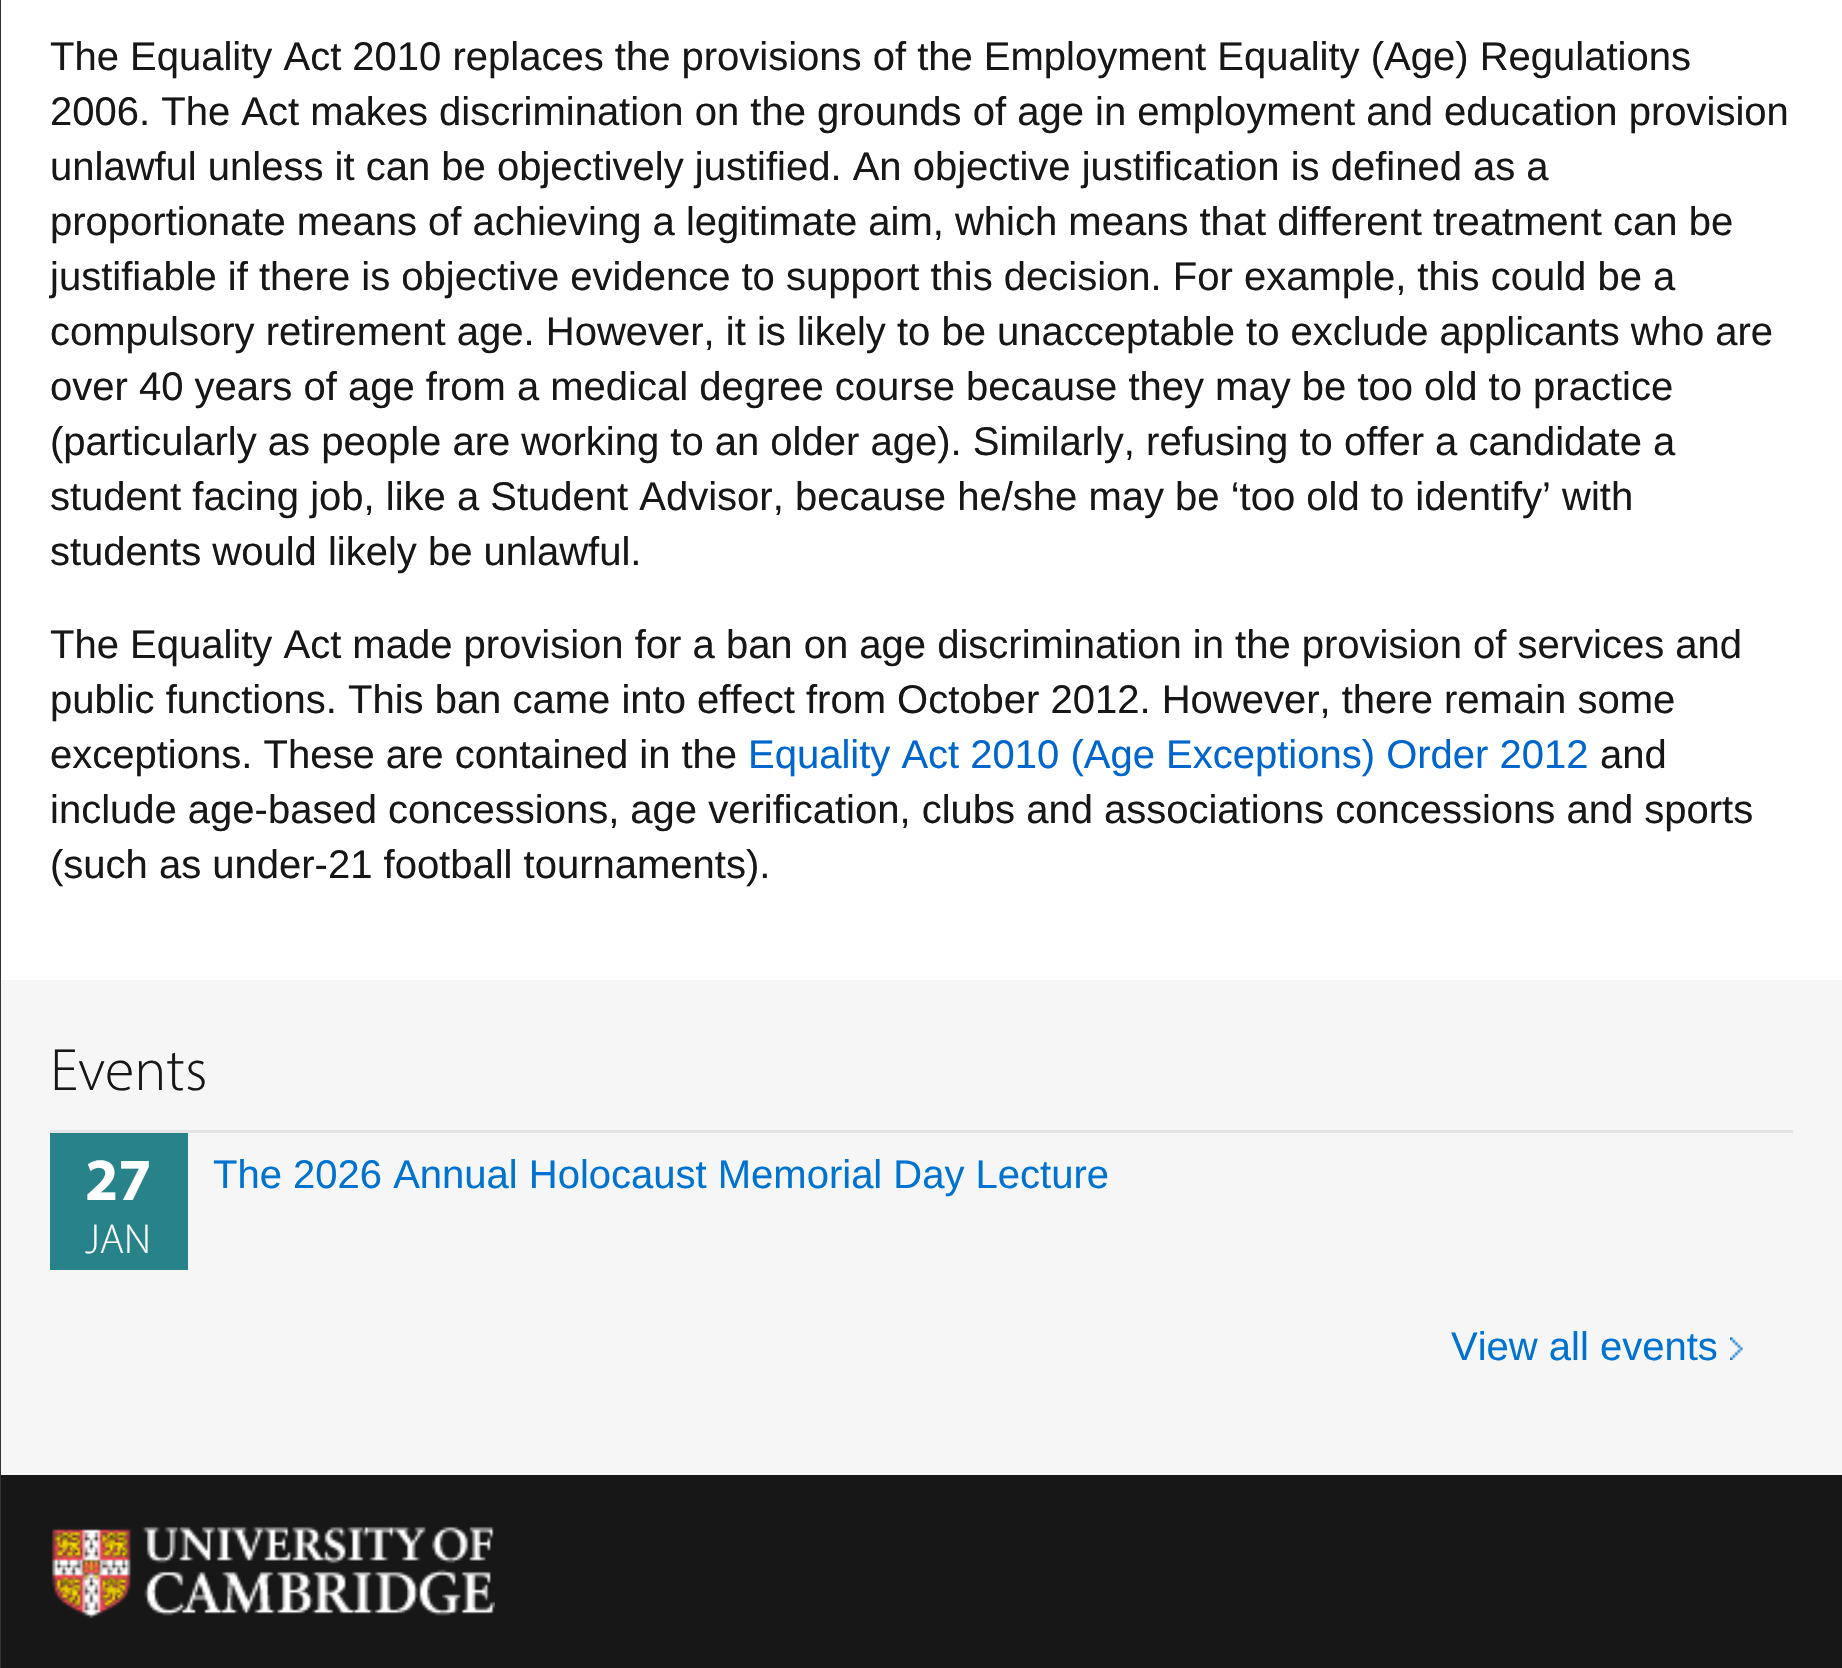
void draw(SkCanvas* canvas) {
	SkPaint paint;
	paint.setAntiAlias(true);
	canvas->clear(0xffffffff);
	paint.setColor(0xff323232);
	canvas->drawRect(SkRect::MakeXYWH(0, 0, 1, 1668), paint);
	SkFont f1(fontMgr->matchFamilyStyle("Liberation Sans", SkFontStyle::Normal()), 40);
	f1.setSubpixel(true);
	paint.setColor(0xff171717);
	canvas->drawString("The Equality Act 2010 replaces the provisions of the Employment Equality (Age) Regulations", 50, 70, f1, paint);
	canvas->drawString("2006. The Act makes discrimination on the grounds of age in employment and education provision", 50, 125, f1, paint);
	canvas->drawString("unlawful unless it can be objectively justified. An objective justification is defined as a", 50, 180, f1, paint);
	canvas->drawString("proportionate means of achieving a legitimate aim, which means that different treatment can be", 50, 235, f1, paint);
	canvas->drawString("justifiable if there is objective evidence to support this decision. For example, this could be a", 50, 290, f1, paint);
	canvas->drawString("compulsory retirement age. However, it is likely to be unacceptable to exclude applicants who are", 50, 345, f1, paint);
	canvas->drawString("over 40 years of age from a medical degree course because they may be too old to practice", 50, 400, f1, paint);
	canvas->drawString("(particularly as people are working to an older age). Similarly, refusing to offer a candidate a", 50, 455, f1, paint);
	canvas->drawString("student facing job, like a Student Advisor, because he/she may be ‘too old to identify’ with", 50, 510, f1, paint);
	canvas->drawString("students would likely be unlawful.", 50, 565, f1, paint);
	canvas->drawString("The Equality Act made provision for a ban on age discrimination in the provision of services and", 50, 658, f1, paint);
	canvas->drawString("public functions. This ban came into effect from October 2012. However, there remain some", 50, 713, f1, paint);
	canvas->drawString("exceptions. These are contained in the", 50, 768, f1, paint);
	paint.setColor(0xff0066cc);
	canvas->drawString("Equality Act 2010 (Age Exceptions) Order 2012", 748, 768, f1, paint);
	paint.setColor(0xff171717);
	canvas->drawString("and", 1600, 768, f1, paint);
	canvas->drawString("include age-based concessions, age verification, clubs and associations concessions and sports", 50, 823, f1, paint);
	canvas->drawString("(such as under-21 football tournaments).", 50, 878, f1, paint);
	paint.setColor(0xfff6f6f6);
	canvas->drawRect(SkRect::MakeXYWH(1, 980, 1841, 495), paint);
	paint.setColor(0xffe4e4e4);
	canvas->drawRect(SkRect::MakeXYWH(50, 1130, 1743, 3), paint);
	SkFont f2(fontMgr->matchFamilyStyle("Myriad", SkFontStyle(300, SkFontStyle::kNormal_Width, SkFontStyle::kUpright_Slant)), 60);
	f2.setSubpixel(true);
	paint.setColor(0xff171717);
	canvas->drawString("Events", 50, 1090, f2, paint);
	paint.setColor(0xff28828a);
	canvas->drawRect(SkRect::MakeXYWH(50, 1133, 138, 137), paint);
	SkFont f3(fontMgr->matchFamilyStyle("Myriad", SkFontStyle::Bold()), 60);
	f3.setSubpixel(true);
	paint.setColor(0xffffffff);
	canvas->drawString("27", 85, 1200, f3, paint);
	SkFont f4(fontMgr->matchFamilyStyle("Myriad", SkFontStyle(300, SkFontStyle::kNormal_Width, SkFontStyle::kUpright_Slant)), 42);
	f4.setSubpixel(true);
	canvas->drawString("JAN", 85, 1253, f4, paint);
	paint.setColor(0xff0072cf);
	canvas->drawString("The 2026 Annual Holocaust Memorial Day Lecture", 213, 1188, f1, paint);
	canvas->drawImageRect(SkImages::DeferredFromEncodedData(SkData::MakeFromFileName("img1.png")), SkRect::MakeXYWH(1730, 1337, 13, 23), SkSamplingOptions());
	canvas->drawString("View all events", 1451, 1360, f1, paint);
	paint.setColor(0xff171717);
	canvas->drawRect(SkRect::MakeXYWH(1, 1475, 1841, 193), paint);
	canvas->drawImageRect(SkImages::DeferredFromEncodedData(SkData::MakeFromFileName("img2.png")), SkRect::MakeXYWH(51, 1526, 444, 93), SkSamplingOptions());
}
